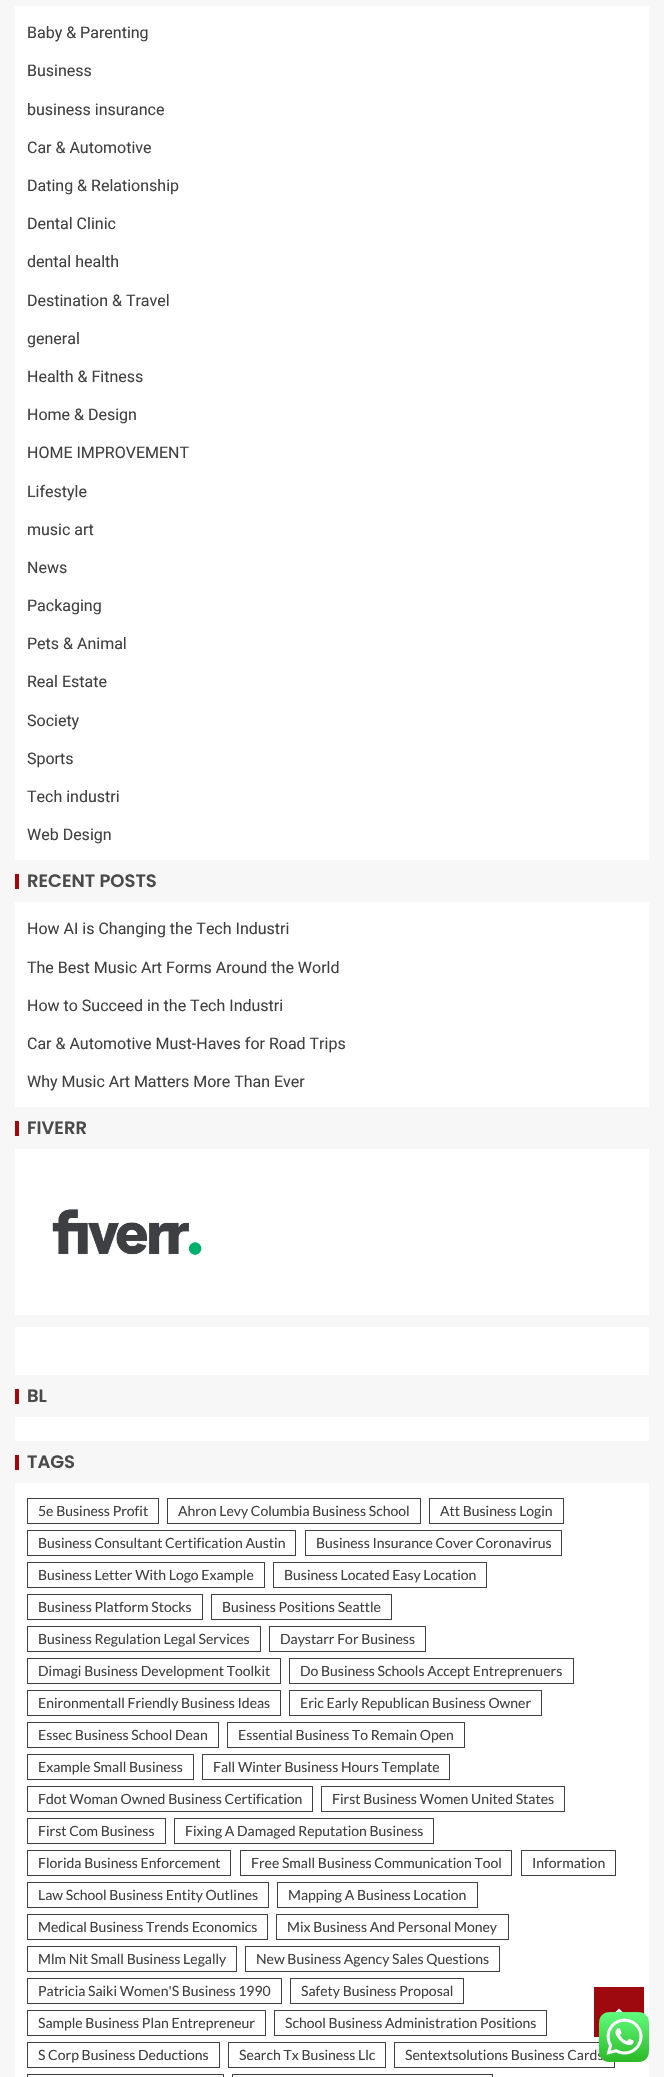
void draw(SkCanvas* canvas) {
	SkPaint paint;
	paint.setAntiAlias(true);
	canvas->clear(0xfff7f7f7);
	paint.setColor(0xffffffff);
	canvas->drawRect(SkRect::MakeXYWH(15, 6, 634, 854), paint);
	SkFont f1(fontMgr->matchFamilyStyle("Roboto", SkFontStyle::Normal()), 16);
	f1.setSubpixel(true);
	paint.setColor(0xff404040);
	canvas->drawString("Baby & Parenting", 27, 38, f1, paint);
	canvas->drawString("Business", 27, 76, f1, paint);
	canvas->drawString("business insurance", 27, 115, f1, paint);
	canvas->drawString("Car & Automotive", 27, 153, f1, paint);
	canvas->drawString("Dating & Relationship", 27, 191, f1, paint);
	canvas->drawString("Dental Clinic", 27, 229, f1, paint);
	canvas->drawString("dental health", 27, 267, f1, paint);
	canvas->drawString("Destination & Travel", 27, 306, f1, paint);
	canvas->drawString("general", 27, 344, f1, paint);
	canvas->drawString("Health & Fitness", 27, 382, f1, paint);
	canvas->drawString("Home & Design", 27, 420, f1, paint);
	canvas->drawString("HOME IMPROVEMENT", 27, 458, f1, paint);
	canvas->drawString("Lifestyle", 27, 497, f1, paint);
	canvas->drawString("music art", 27, 535, f1, paint);
	canvas->drawString("News", 27, 573, f1, paint);
	canvas->drawString("Packaging", 27, 611, f1, paint);
	canvas->drawString("Pets & Animal", 27, 649, f1, paint);
	canvas->drawString("Real Estate", 27, 687, f1, paint);
	canvas->drawString("Society", 27, 726, f1, paint);
	canvas->drawString("Sports", 27, 764, f1, paint);
	canvas->drawString("Tech industri", 27, 802, f1, paint);
	canvas->drawString("Web Design", 27, 840, f1, paint);
	paint.setColor(0xff9d090d);
	canvas->drawRect(SkRect::MakeXYWH(15, 874, 4, 15), paint);
	SkFont f2(fontMgr->matchFamilyStyle("Poppins", SkFontStyle(600, SkFontStyle::kNormal_Width, SkFontStyle::kUpright_Slant)), 18);
	f2.setSubpixel(true);
	paint.setColor(0xff4a4a4a);
	canvas->drawString("RECENT POSTS", 27, 887, f2, paint);
	paint.setColor(0xffffffff);
	canvas->drawRect(SkRect::MakeXYWH(15, 902, 634, 205), paint);
	paint.setColor(0xff404040);
	canvas->drawString("How AI is Changing the Tech Industri", 27, 934, f1, paint);
	canvas->drawString("The Best Music Art Forms Around the World", 27, 973, f1, paint);
	canvas->drawString("How to Succeed in the Tech Industri", 27, 1011, f1, paint);
	canvas->drawString("Car & Automotive Must-Haves for Road Trips", 27, 1049, f1, paint);
	canvas->drawString("Why Music Art Matters More Than Ever", 27, 1087, f1, paint);
	paint.setColor(0xff9d090d);
	canvas->drawRect(SkRect::MakeXYWH(15, 1121, 4, 15), paint);
	paint.setColor(0xff4a4a4a);
	canvas->drawString("FIVERR", 27, 1134, f2, paint);
	paint.setColor(0xffffffff);
	canvas->drawRect(SkRect::MakeXYWH(15, 1149, 634, 166), paint);
	canvas->drawImageRect(SkImages::DeferredFromEncodedData(SkData::MakeFromFileName("img1.png")), SkRect::MakeXYWH(52, 1209, 150, 46), SkSamplingOptions());
	canvas->drawRect(SkRect::MakeXYWH(15, 1327, 634, 48), paint);
	paint.setColor(0xff9d090d);
	canvas->drawRect(SkRect::MakeXYWH(15, 1389, 4, 15), paint);
	paint.setColor(0xff4a4a4a);
	canvas->drawString("BL", 27, 1402, f2, paint);
	paint.setColor(0xffffffff);
	canvas->drawRect(SkRect::MakeXYWH(15, 1417, 634, 24), paint);
	paint.setColor(0xff9d090d);
	canvas->drawRect(SkRect::MakeXYWH(15, 1455, 4, 15), paint);
	paint.setColor(0xff4a4a4a);
	canvas->drawString("TAGS", 27, 1468, f2, paint);
	paint.setColor(0xffffffff);
	canvas->drawRect(SkRect::MakeXYWH(15, 1483, 634, 594), paint);
	paint.setStroke(true);
	paint.setStrokeWidth(1);
	paint.setColor(0xff404040);
	canvas->drawRect(SkRect::MakeXYWH(27.5, 1498.5, 131, 25), paint);
	SkFont f3(fontMgr->matchFamilyStyle("Lato", SkFontStyle::Normal()), 14);
	f3.setSubpixel(true);
	paint.setStroke(false);
	canvas->drawString("5e Business Profit", 38, 1516, f3, paint);
	paint.setStroke(true);
	canvas->drawRect(SkRect::MakeXYWH(167.5, 1498.5, 253, 25), paint);
	paint.setStroke(false);
	canvas->drawString("Ahron Levy Columbia Business School", 178, 1516, f3, paint);
	paint.setStroke(true);
	canvas->drawRect(SkRect::MakeXYWH(429.5, 1498.5, 134, 25), paint);
	paint.setStroke(false);
	canvas->drawString("Att Business Login", 440, 1516, f3, paint);
	paint.setStroke(true);
	canvas->drawRect(SkRect::MakeXYWH(27.5, 1530.5, 268, 25), paint);
	paint.setStroke(false);
	canvas->drawString("Business Consultant Certification Austin", 38, 1548, f3, paint);
	paint.setStroke(true);
	canvas->drawRect(SkRect::MakeXYWH(305.5, 1530.5, 256, 25), paint);
	paint.setStroke(false);
	canvas->drawString("Business Insurance Cover Coronavirus", 316, 1548, f3, paint);
	paint.setStroke(true);
	canvas->drawRect(SkRect::MakeXYWH(27.5, 1562.5, 237, 25), paint);
	paint.setStroke(false);
	canvas->drawString("Business Letter With Logo Example", 38, 1580, f3, paint);
	paint.setStroke(true);
	canvas->drawRect(SkRect::MakeXYWH(273.5, 1562.5, 213, 25), paint);
	paint.setStroke(false);
	canvas->drawString("Business Located Easy Location", 284, 1580, f3, paint);
	paint.setStroke(true);
	canvas->drawRect(SkRect::MakeXYWH(27.5, 1594.5, 175, 25), paint);
	paint.setStroke(false);
	canvas->drawString("Business Platform Stocks", 38, 1612, f3, paint);
	paint.setStroke(true);
	canvas->drawRect(SkRect::MakeXYWH(211.5, 1594.5, 180, 25), paint);
	paint.setStroke(false);
	canvas->drawString("Business Positions Seattle", 222, 1612, f3, paint);
	paint.setStroke(true);
	canvas->drawRect(SkRect::MakeXYWH(27.5, 1626.5, 233, 25), paint);
	paint.setStroke(false);
	canvas->drawString("Business Regulation Legal Services", 38, 1644, f3, paint);
	paint.setStroke(true);
	canvas->drawRect(SkRect::MakeXYWH(269.5, 1626.5, 156, 25), paint);
	paint.setStroke(false);
	canvas->drawString("Daystarr For Business", 280, 1644, f3, paint);
	paint.setStroke(true);
	canvas->drawRect(SkRect::MakeXYWH(27.5, 1658.5, 253, 25), paint);
	paint.setStroke(false);
	canvas->drawString("Dimagi Business Development Toolkit", 38, 1676, f3, paint);
	paint.setStroke(true);
	canvas->drawRect(SkRect::MakeXYWH(289.5, 1658.5, 284, 25), paint);
	paint.setStroke(false);
	canvas->drawString("Do Business Schools Accept Entreprenuers", 300, 1676, f3, paint);
	paint.setStroke(true);
	canvas->drawRect(SkRect::MakeXYWH(27.5, 1690.5, 253, 25), paint);
	paint.setStroke(false);
	canvas->drawString("Enironmentall Friendly Business Ideas", 38, 1708, f3, paint);
	paint.setStroke(true);
	canvas->drawRect(SkRect::MakeXYWH(289.5, 1690.5, 252, 25), paint);
	paint.setStroke(false);
	canvas->drawString("Eric Early Republican Business Owner", 300, 1708, f3, paint);
	paint.setStroke(true);
	canvas->drawRect(SkRect::MakeXYWH(27.5, 1722.5, 191, 25), paint);
	paint.setStroke(false);
	canvas->drawString("Essec Business School Dean", 38, 1740, f3, paint);
	paint.setStroke(true);
	canvas->drawRect(SkRect::MakeXYWH(227.5, 1722.5, 237, 25), paint);
	paint.setStroke(false);
	canvas->drawString("Essential Business To Remain Open", 238, 1740, f3, paint);
	paint.setStroke(true);
	canvas->drawRect(SkRect::MakeXYWH(27.5, 1754.5, 166, 25), paint);
	paint.setStroke(false);
	canvas->drawString("Example Small Business", 38, 1772, f3, paint);
	paint.setStroke(true);
	canvas->drawRect(SkRect::MakeXYWH(202.5, 1754.5, 247, 25), paint);
	paint.setStroke(false);
	canvas->drawString("Fall Winter Business Hours Template", 213, 1772, f3, paint);
	paint.setStroke(true);
	canvas->drawRect(SkRect::MakeXYWH(27.5, 1786.5, 285, 25), paint);
	paint.setStroke(false);
	canvas->drawString("Fdot Woman Owned Business Certification", 38, 1804, f3, paint);
	paint.setStroke(true);
	canvas->drawRect(SkRect::MakeXYWH(321.5, 1786.5, 243, 25), paint);
	paint.setStroke(false);
	canvas->drawString("First Business Women United States", 332, 1804, f3, paint);
	paint.setStroke(true);
	canvas->drawRect(SkRect::MakeXYWH(27.5, 1818.5, 138, 25), paint);
	paint.setStroke(false);
	canvas->drawString("First Com Business", 38, 1836, f3, paint);
	paint.setStroke(true);
	canvas->drawRect(SkRect::MakeXYWH(174.5, 1818.5, 259, 25), paint);
	paint.setStroke(false);
	canvas->drawString("Fixing A Damaged Reputation Business", 185, 1836, f3, paint);
	paint.setStroke(true);
	canvas->drawRect(SkRect::MakeXYWH(27.5, 1850.5, 203, 25), paint);
	paint.setStroke(false);
	canvas->drawString("Florida Business Enforcement", 38, 1868, f3, paint);
	paint.setStroke(true);
	canvas->drawRect(SkRect::MakeXYWH(240.5, 1850.5, 271, 25), paint);
	paint.setStroke(false);
	canvas->drawString("Free Small Business Communication Tool", 251, 1868, f3, paint);
	paint.setStroke(true);
	canvas->drawRect(SkRect::MakeXYWH(521.5, 1850.5, 94, 25), paint);
	paint.setStroke(false);
	canvas->drawString("Information", 532, 1868, f3, paint);
	paint.setStroke(true);
	canvas->drawRect(SkRect::MakeXYWH(27.5, 1882.5, 241, 25), paint);
	paint.setStroke(false);
	canvas->drawString("Law School Business Entity Outlines", 38, 1900, f3, paint);
	paint.setStroke(true);
	canvas->drawRect(SkRect::MakeXYWH(277.5, 1882.5, 200, 25), paint);
	paint.setStroke(false);
	canvas->drawString("Mapping A Business Location", 288, 1900, f3, paint);
	paint.setStroke(true);
	canvas->drawRect(SkRect::MakeXYWH(27.5, 1914.5, 240, 25), paint);
	paint.setStroke(false);
	canvas->drawString("Medical Business Trends Economics", 38, 1932, f3, paint);
	paint.setStroke(true);
	canvas->drawRect(SkRect::MakeXYWH(276.5, 1914.5, 232, 25), paint);
	paint.setStroke(false);
	canvas->drawString("Mix Business And Personal Money", 287, 1932, f3, paint);
	paint.setStroke(true);
	canvas->drawRect(SkRect::MakeXYWH(27.5, 1946.5, 209, 25), paint);
	paint.setStroke(false);
	canvas->drawString("Mlm Nit Small Business Legally", 38, 1964, f3, paint);
	paint.setStroke(true);
	canvas->drawRect(SkRect::MakeXYWH(245.5, 1946.5, 254, 25), paint);
	paint.setStroke(false);
	canvas->drawString("New Business Agency Sales Questions", 256, 1964, f3, paint);
	paint.setStroke(true);
	canvas->drawRect(SkRect::MakeXYWH(27.5, 1978.5, 254, 25), paint);
	paint.setStroke(false);
	canvas->drawString("Patricia Saiki Women'S Business 1990", 38, 1996, f3, paint);
	paint.setStroke(true);
	canvas->drawRect(SkRect::MakeXYWH(290.5, 1978.5, 173, 25), paint);
	paint.setStroke(false);
	canvas->drawString("Safety Business Proposal", 301, 1996, f3, paint);
	paint.setStroke(true);
	canvas->drawRect(SkRect::MakeXYWH(27.5, 2010.5, 238, 25), paint);
	paint.setStroke(false);
	canvas->drawString("Sample Business Plan Entrepreneur", 38, 2028, f3, paint);
	paint.setStroke(true);
	canvas->drawRect(SkRect::MakeXYWH(274.5, 2010.5, 272, 25), paint);
	paint.setStroke(false);
	canvas->drawString("School Business Administration Positions", 285, 2028, f3, paint);
	paint.setStroke(true);
	canvas->drawRect(SkRect::MakeXYWH(27.5, 2042.5, 192, 25), paint);
	paint.setStroke(false);
	canvas->drawString("S Corp Business Deductions", 38, 2060, f3, paint);
	paint.setStroke(true);
	canvas->drawRect(SkRect::MakeXYWH(228.5, 2042.5, 157, 25), paint);
	paint.setStroke(false);
	canvas->drawString("Search Tx Business Llc", 239, 2060, f3, paint);
	paint.setStroke(true);
	canvas->drawRect(SkRect::MakeXYWH(394.5, 2042.5, 220, 25), paint);
	paint.setStroke(false);
	canvas->drawString("Sentextsolutions Business Cards", 405, 2060, f3, paint);
	paint.setStroke(true);
	canvas->drawRect(SkRect::MakeXYWH(27.5, 2074.5, 196, 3), paint);
	canvas->drawRect(SkRect::MakeXYWH(232.5, 2074.5, 260, 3), paint);
	paint.setStroke(false);
	paint.setColor(0xff9d090d);
	canvas->drawRect(SkRect::MakeXYWH(594, 1987, 50, 50), paint);
	canvas->drawImageRect(SkImages::DeferredFromEncodedData(SkData::MakeFromFileName("img2.png")), SkRect::MakeXYWH(614, 2008, 10, 5), SkSamplingOptions());
	canvas->drawImageRect(SkImages::DeferredFromEncodedData(SkData::MakeFromFileName("img3.png")), SkRect::MakeXYWH(599, 2012, 50, 50), SkSamplingOptions());
}
